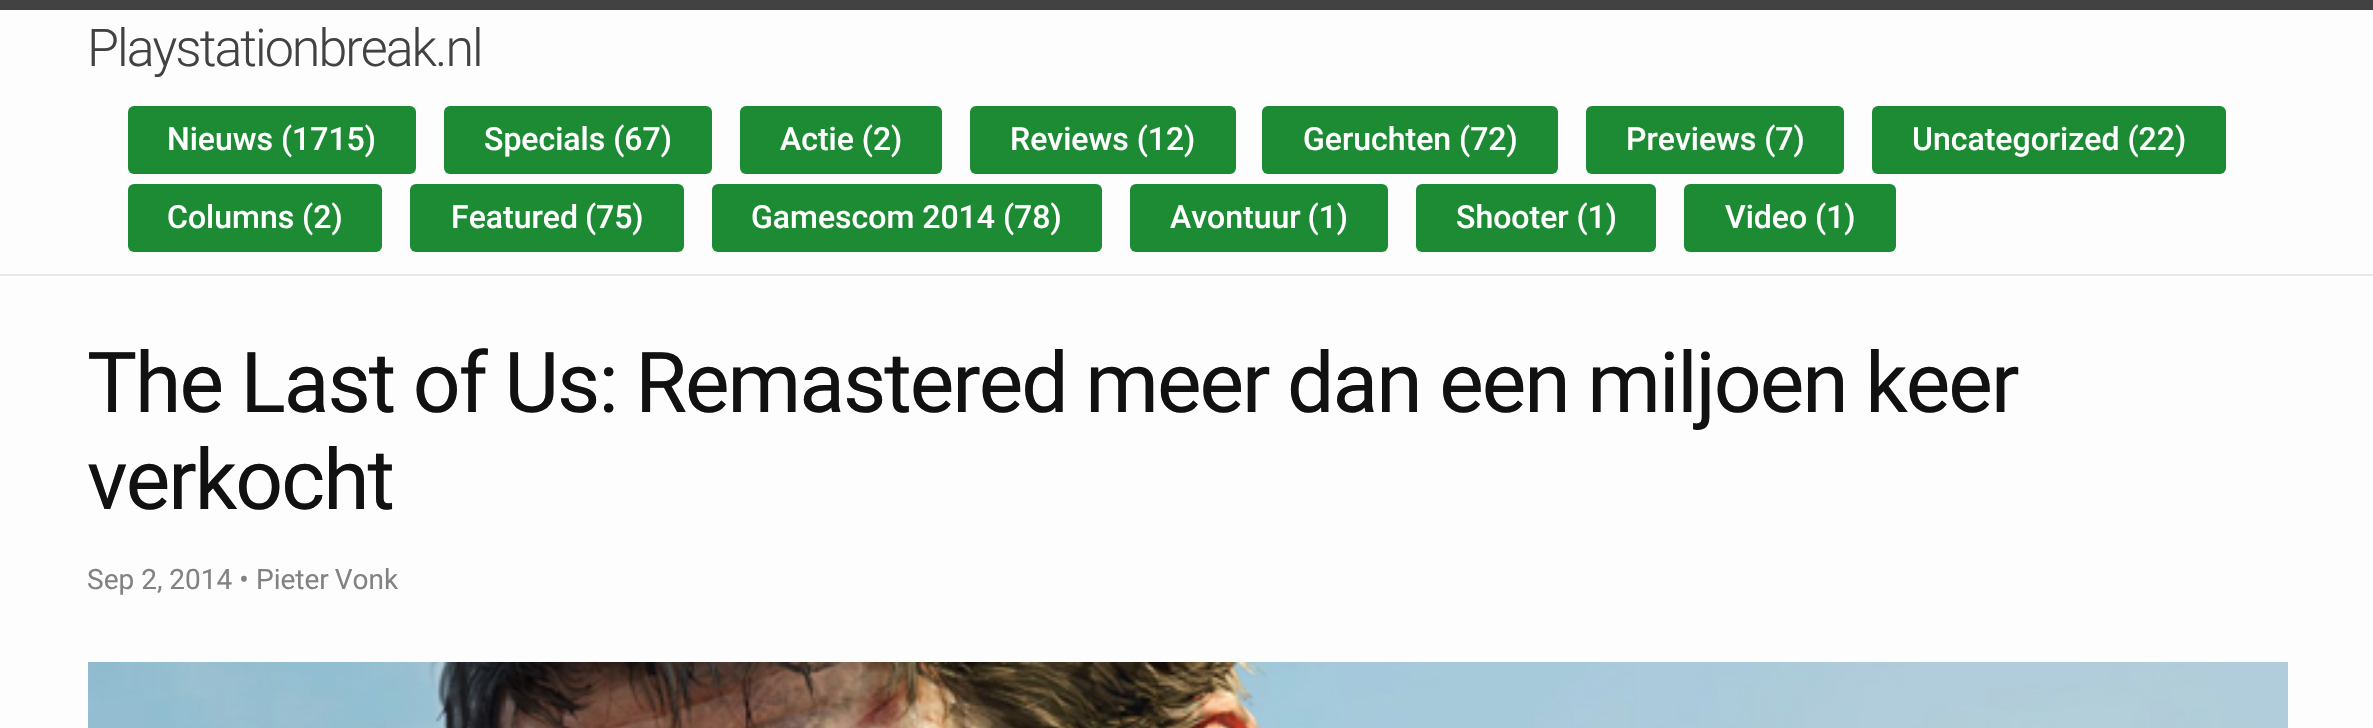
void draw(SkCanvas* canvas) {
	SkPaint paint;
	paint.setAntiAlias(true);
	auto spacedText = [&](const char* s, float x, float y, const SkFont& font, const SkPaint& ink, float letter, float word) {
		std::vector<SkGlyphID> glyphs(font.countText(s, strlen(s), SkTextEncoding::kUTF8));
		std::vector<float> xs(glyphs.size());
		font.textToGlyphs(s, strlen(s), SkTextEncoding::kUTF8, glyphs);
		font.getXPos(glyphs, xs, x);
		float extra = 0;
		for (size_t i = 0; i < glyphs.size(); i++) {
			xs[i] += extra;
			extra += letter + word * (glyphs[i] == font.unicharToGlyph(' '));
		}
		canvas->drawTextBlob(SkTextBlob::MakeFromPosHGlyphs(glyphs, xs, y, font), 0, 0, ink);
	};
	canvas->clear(0xfffdfdfd);
	paint.setColor(0xff424242);
	canvas->drawRect(SkRect::MakeXYWH(0, 0, 2373, 10), paint);
	paint.setColor(0xffe8e8e8);
	canvas->drawRect(SkRect::MakeXYWH(0, 274, 2373, 2), paint);
	SkFont f1(fontMgr->matchFamilyStyle("Roboto", SkFontStyle(300, SkFontStyle::kNormal_Width, SkFontStyle::kUpright_Slant)), 52);
	f1.setSubpixel(true);
	paint.setColor(0xff424242);
	spacedText("Playstationbreak.nl", 87, 66, f1, paint, -2, 0);
	paint.setColor(0xff1d8a34);
	canvas->drawRoundRect(SkRect::MakeXYWH(128, 106, 288, 68), 6, 6, paint);
	SkFont f2(fontMgr->matchFamilyStyle("Roboto", SkFontStyle(500, SkFontStyle::kNormal_Width, SkFontStyle::kUpright_Slant)), 32);
	f2.setSubpixel(true);
	paint.setColor(0xffffffff);
	canvas->drawString("Nieuws (1715)", 167, 150, f2, paint);
	paint.setColor(0xff1d8a34);
	canvas->drawRoundRect(SkRect::MakeXYWH(444, 106, 268, 68), 6, 6, paint);
	paint.setColor(0xffffffff);
	canvas->drawString("Specials (67)", 484, 150, f2, paint);
	paint.setColor(0xff1d8a34);
	canvas->drawRoundRect(SkRect::MakeXYWH(740, 106, 202, 68), 6, 6, paint);
	paint.setColor(0xffffffff);
	canvas->drawString("Actie (2)", 780, 150, f2, paint);
	paint.setColor(0xff1d8a34);
	canvas->drawRoundRect(SkRect::MakeXYWH(970, 106, 266, 68), 6, 6, paint);
	paint.setColor(0xffffffff);
	canvas->drawString("Reviews (12)", 1010, 150, f2, paint);
	paint.setColor(0xff1d8a34);
	canvas->drawRoundRect(SkRect::MakeXYWH(1262, 106, 296, 68), 6, 6, paint);
	paint.setColor(0xffffffff);
	canvas->drawString("Geruchten (72)", 1303, 150, f2, paint);
	paint.setColor(0xff1d8a34);
	canvas->drawRoundRect(SkRect::MakeXYWH(1586, 106, 258, 68), 6, 6, paint);
	paint.setColor(0xffffffff);
	canvas->drawString("Previews (7)", 1626, 150, f2, paint);
	paint.setColor(0xff1d8a34);
	canvas->drawRoundRect(SkRect::MakeXYWH(1872, 106, 354, 68), 6, 6, paint);
	paint.setColor(0xffffffff);
	canvas->drawString("Uncategorized (22)", 1912, 150, f2, paint);
	paint.setColor(0xff1d8a34);
	canvas->drawRoundRect(SkRect::MakeXYWH(128, 184, 254, 68), 6, 6, paint);
	paint.setColor(0xffffffff);
	canvas->drawString("Columns (2)", 167, 228, f2, paint);
	paint.setColor(0xff1d8a34);
	canvas->drawRoundRect(SkRect::MakeXYWH(410, 184, 274, 68), 6, 6, paint);
	paint.setColor(0xffffffff);
	spacedText("Featured (75)", 451, 228, f2, paint, 0, -1);
	paint.setColor(0xff1d8a34);
	canvas->drawRoundRect(SkRect::MakeXYWH(712, 184, 390, 68), 6, 6, paint);
	paint.setColor(0xffffffff);
	canvas->drawString("Gamescom 2014 (78)", 751, 228, f2, paint);
	paint.setColor(0xff1d8a34);
	canvas->drawRoundRect(SkRect::MakeXYWH(1130, 184, 258, 68), 6, 6, paint);
	paint.setColor(0xffffffff);
	spacedText("Avontuur (1)", 1170, 228, f2, paint, 0, -1);
	paint.setColor(0xff1d8a34);
	canvas->drawRoundRect(SkRect::MakeXYWH(1416, 184, 240, 68), 6, 6, paint);
	paint.setColor(0xffffffff);
	canvas->drawString("Shooter (1)", 1456, 228, f2, paint);
	paint.setColor(0xff1d8a34);
	canvas->drawRoundRect(SkRect::MakeXYWH(1684, 184, 212, 68), 6, 6, paint);
	paint.setColor(0xffffffff);
	canvas->drawString("Video (1)", 1725, 228, f2, paint);
	SkFont f3(fontMgr->matchFamilyStyle("Roboto", SkFontStyle::Normal()), 84);
	f3.setSubpixel(true);
	paint.setColor(0xff111111);
	spacedText("The Last of Us: Remastered meer dan een miljoen keer", 87, 412, f3, paint, -2, -0.25);
	spacedText("verkocht", 87, 509, f3, paint, -2, 0);
	SkFont f4(fontMgr->matchFamilyStyle("Roboto", SkFontStyle::Normal()), 28);
	f4.setSubpixel(true);
	paint.setColor(0xff828282);
	canvas->drawString("Sep 2, 2014 •", 87, 589, f4, paint);
	spacedText("Pieter Vonk", 256, 589, f4, paint, 0, -1);
	canvas->drawImageRect(SkImages::DeferredFromEncodedData(SkData::MakeFromFileName("img1.png")), SkRect::MakeXYWH(88, 662, 2200, 66), SkSamplingOptions());
}
